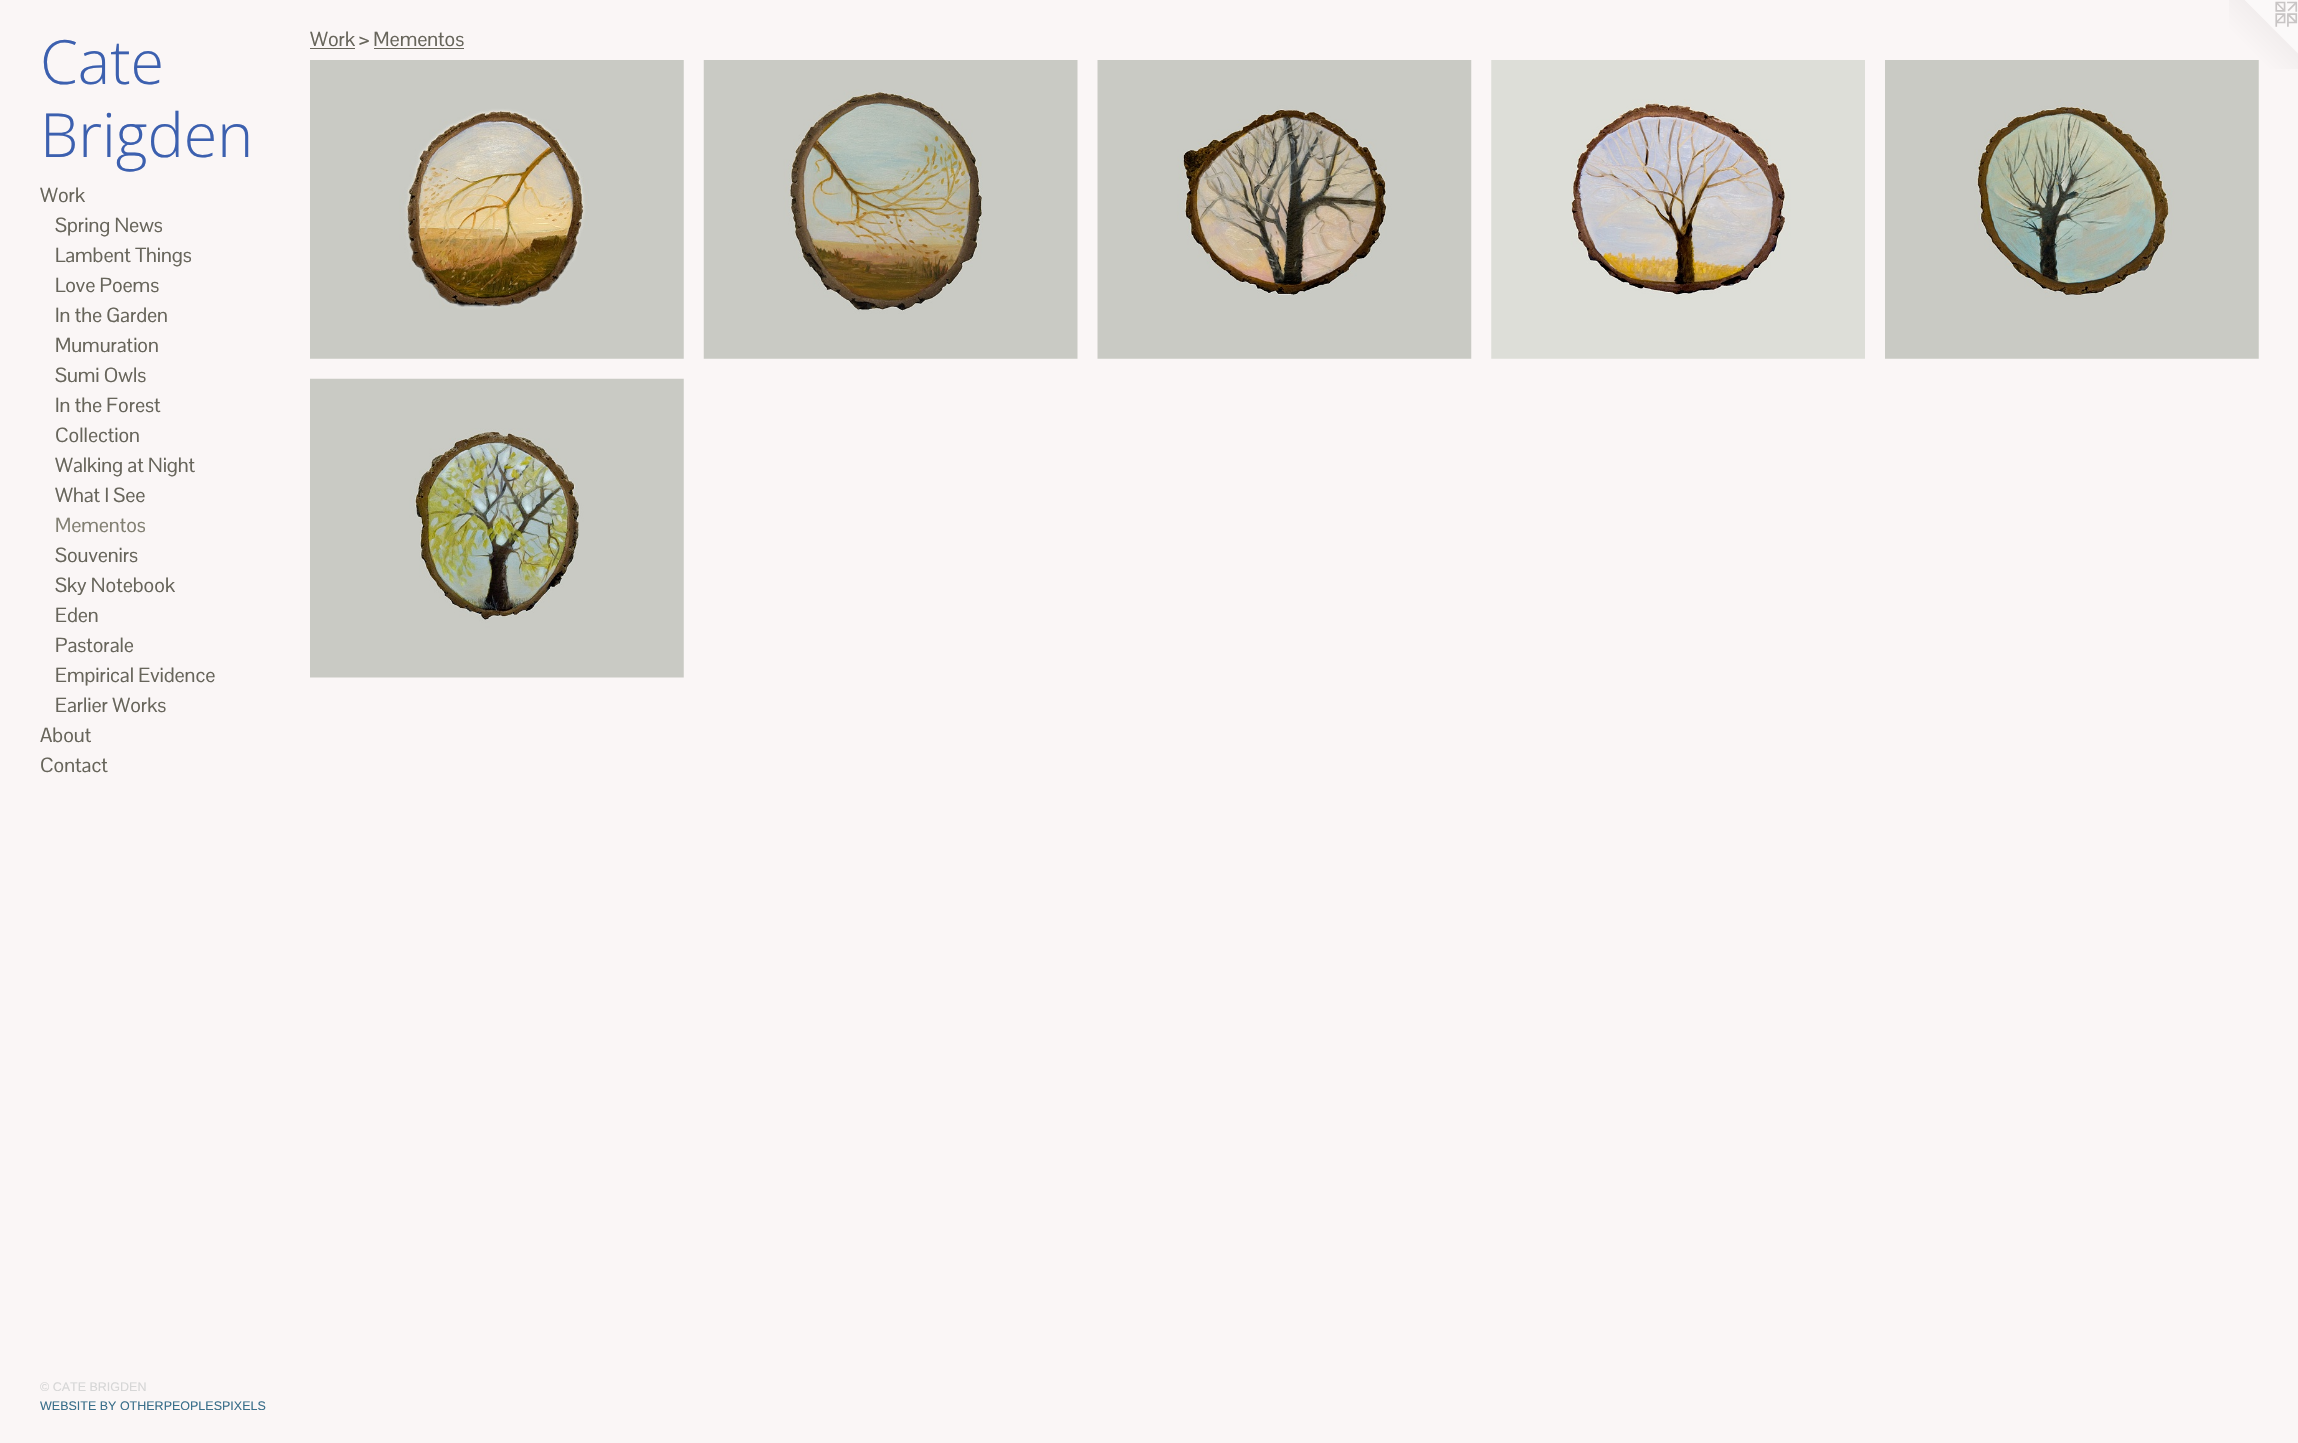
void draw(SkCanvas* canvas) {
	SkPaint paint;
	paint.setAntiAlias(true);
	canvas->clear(0xfffaf6f6);
	SkFont f1(fontMgr->matchFamilyStyle("Open Sans", SkFontStyle(300, SkFontStyle::kNormal_Width, SkFontStyle::kUpright_Slant)), 61);
	f1.setSubpixel(true);
	paint.setColor(0xff3c60af);
	canvas->drawString("Cate", 40, 84, f1, paint);
	canvas->drawString("Brigden", 40, 157, f1, paint);
	SkFont f2(fontMgr->matchFamilyStyle("Pontano Sans", SkFontStyle::Normal()), 20);
	f2.setSubpixel(true);
	paint.setColor(0xff67655b);
	canvas->drawString("Work", 40, 202, f2, paint);
	canvas->drawString("Spring News", 55, 232, f2, paint);
	canvas->drawString("Lambent Things", 55, 262, f2, paint);
	canvas->drawString("Love Poems", 55, 292, f2, paint);
	canvas->drawString("In the Garden", 55, 322, f2, paint);
	canvas->drawString("Mumuration", 55, 352, f2, paint);
	canvas->drawString("Sumi Owls", 55, 382, f2, paint);
	canvas->drawString("In the Forest", 55, 412, f2, paint);
	canvas->drawString("Collection", 55, 442, f2, paint);
	canvas->drawString("Walking at Night", 55, 472, f2, paint);
	canvas->drawString("What I See", 55, 502, f2, paint);
	paint.setColor(0xff828073);
	canvas->drawString("Mementos", 55, 532, f2, paint);
	paint.setColor(0xff67655b);
	canvas->drawString("Souvenirs", 55, 562, f2, paint);
	canvas->drawString("Sky Notebook", 55, 592, f2, paint);
	canvas->drawString("Eden", 55, 622, f2, paint);
	canvas->drawString("Pastorale", 55, 652, f2, paint);
	canvas->drawString("Empirical Evidence", 55, 682, f2, paint);
	canvas->drawString("Earlier Works", 55, 712, f2, paint);
	canvas->drawString("About", 40, 742, f2, paint);
	canvas->drawString("Contact", 40, 772, f2, paint);
	SkFont f3(fontMgr->matchFamilyStyle("Liberation Sans", SkFontStyle::Normal()), 12.5);
	f3.setSubpixel(true);
	paint.setColor(0xffd6d6d6);
	canvas->drawString("© CATE BRIGDEN", 40, 1391, f3, paint);
	paint.setColor(0xff396e8a);
	canvas->drawString("WEBSITE BY OTHERPEOPLESPIXELS", 40, 1410, f3, paint);
	paint.setColor(0xff67655b);
	canvas->drawString("Work > Mementos", 310, 46, f2, paint);
	canvas->drawRect(SkRect::MakeXYWH(310, 48, 45, 1), paint);
	canvas->drawRect(SkRect::MakeXYWH(374, 48, 90, 1), paint);
	canvas->drawImageRect(SkImages::DeferredFromEncodedData(SkData::MakeFromFileName("img1.png")), SkRect::MakeXYWH(310, 60, 374, 299), SkSamplingOptions());
	canvas->drawImageRect(SkImages::DeferredFromEncodedData(SkData::MakeFromFileName("img2.png")), SkRect::MakeXYWH(703, 60, 375, 299), SkSamplingOptions());
	canvas->drawImageRect(SkImages::DeferredFromEncodedData(SkData::MakeFromFileName("img3.png")), SkRect::MakeXYWH(1097, 60, 375, 299), SkSamplingOptions());
	canvas->drawImageRect(SkImages::DeferredFromEncodedData(SkData::MakeFromFileName("img4.png")), SkRect::MakeXYWH(1491, 60, 374, 299), SkSamplingOptions());
	canvas->drawImageRect(SkImages::DeferredFromEncodedData(SkData::MakeFromFileName("img7.png")), SkRect::MakeXYWH(2229, 0, 69, 69), SkSamplingOptions());
	canvas->drawImageRect(SkImages::DeferredFromEncodedData(SkData::MakeFromFileName("img5.png")), SkRect::MakeXYWH(1885, 60, 374, 299), SkSamplingOptions());
	canvas->drawImageRect(SkImages::DeferredFromEncodedData(SkData::MakeFromFileName("img6.png")), SkRect::MakeXYWH(310, 378, 374, 300), SkSamplingOptions());
}
